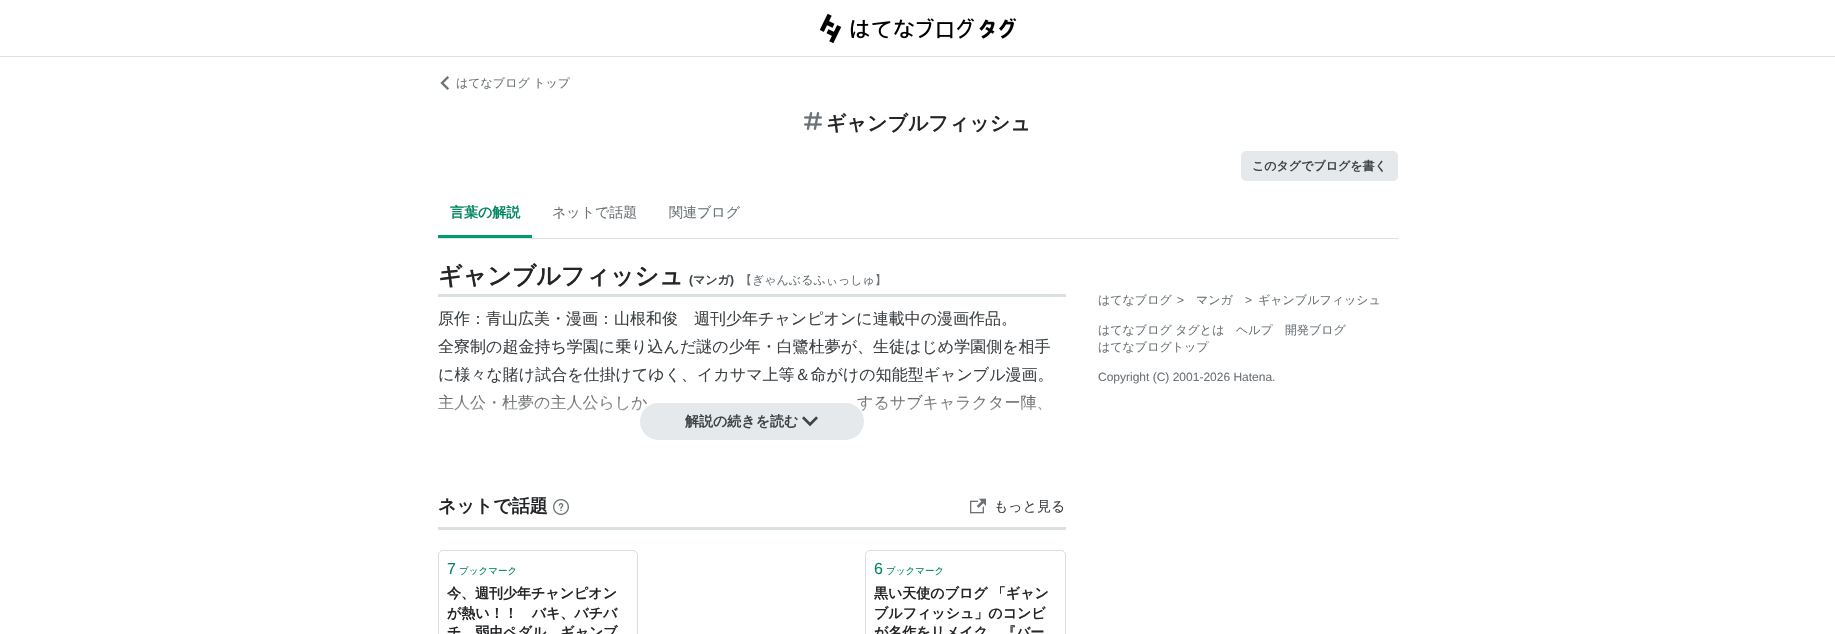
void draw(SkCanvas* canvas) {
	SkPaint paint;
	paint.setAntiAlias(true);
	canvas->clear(0xffffffff);
	paint.setColor(0xffdadfe2);
	canvas->drawRect(SkRect::MakeXYWH(0, 56, 1835, 1), paint);
	canvas->drawImageRect(SkImages::DeferredFromEncodedData(SkData::MakeFromFileName("img1.png")), SkRect::MakeXYWH(819, 13, 198, 31), SkSamplingOptions());
	canvas->drawImageRect(SkImages::DeferredFromEncodedData(SkData::MakeFromFileName("img2.png")), SkRect::MakeXYWH(440, 76, 9, 14), SkSamplingOptions());
	SkFont f1(fontMgr->matchFamilyStyle("WenQuanYi Zen Hei", SkFontStyle(500, SkFontStyle::kNormal_Width, SkFontStyle::kUpright_Slant)), 12);
	f1.setSubpixel(true);
	paint.setColor(0xff6b7377);
	canvas->drawString("はてなブログ トップ", 456, 87, f1, paint);
	canvas->drawImageRect(SkImages::DeferredFromEncodedData(SkData::MakeFromFileName("img3.png")), SkRect::MakeXYWH(804, 112, 18, 18), SkSamplingOptions());
	SkFont f2(fontMgr->matchFamilyStyle("WenQuanYi Zen Hei", SkFontStyle::Bold()), 20);
	f2.setSubpixel(true);
	paint.setColor(0xff242527);
	canvas->drawString("ギャンブルフィッシュ", 826, 130, f2, paint);
	paint.setColor(0xffe5e9eb);
	canvas->drawRoundRect(SkRect::MakeXYWH(1241, 151, 157, 30), 5, 5, paint);
	SkFont f3(fontMgr->matchFamilyStyle("WenQuanYi Zen Hei", SkFontStyle::Bold()), 12);
	f3.setSubpixel(true);
	paint.setColor(0xff3d4245);
	canvas->drawString("このタグでブログを書く", 1252, 170, f3, paint);
	paint.setColor(0xffdadfe2);
	canvas->drawRect(SkRect::MakeXYWH(438, 238, 960, 1), paint);
	paint.setColor(0xff009d73);
	canvas->drawRect(SkRect::MakeXYWH(438, 235, 94, 3), paint);
	SkFont f4(fontMgr->matchFamilyStyle("WenQuanYi Zen Hei", SkFontStyle::Bold()), 14);
	f4.setSubpixel(true);
	paint.setColor(0xff038662);
	canvas->drawString("言葉の解説", 450, 217, f4, paint);
	SkFont f5(fontMgr->matchFamilyStyle("WenQuanYi Zen Hei", SkFontStyle(500, SkFontStyle::kNormal_Width, SkFontStyle::kUpright_Slant)), 14);
	f5.setSubpixel(true);
	paint.setColor(0xff6b7377);
	canvas->drawString("ネットで話題", 552, 217, f5, paint);
	canvas->drawString("関連ブログ", 669, 217, f5, paint);
	paint.setColor(0xffdadfe2);
	canvas->drawRect(SkRect::MakeXYWH(438, 294, 628, 3), paint);
	SkFont f6(fontMgr->matchFamilyStyle("WenQuanYi Zen Hei", SkFontStyle::Bold()), 24);
	f6.setSubpixel(true);
	paint.setColor(0xff242527);
	canvas->drawString("ギャンブルフィッシュ", 438, 284, f6, paint);
	SkFont f7(fontMgr->matchFamilyStyle("Liberation Sans", SkFontStyle::Bold()), 12);
	f7.setSubpixel(true);
	paint.setColor(0xff3d4245);
	canvas->drawString("(", 689, 284, f7, paint);
	canvas->drawString("マンガ", 693, 284, f3, paint);
	canvas->drawString(")", 730, 284, f7, paint);
	paint.setColor(0xff6b7377);
	canvas->drawString("【ぎゃんぶるふぃっしゅ】", 740, 284, f1, paint);
	SkFont f8(fontMgr->matchFamilyStyle("WenQuanYi Zen Hei", SkFontStyle(500, SkFontStyle::kNormal_Width, SkFontStyle::kUpright_Slant)), 16);
	f8.setSubpixel(true);
	paint.setColor(0xff3d4245);
	canvas->drawString("原作：青山広美・漫画：山根和俊　週刊少年チャンピオンに連載中の漫画作品。", 438, 324, f8, paint);
	canvas->drawString("全寮制の超金持ち学園に乗り込んだ謎の少年・白鷺杜夢が、生徒はじめ学園側を相手", 438, 352, f8, paint);
	canvas->drawString("に様々な賭け試合を仕掛けてゆく、イカサマ上等＆命がけの知能型ギャンブル漫画。", 438, 380, f8, paint);
	canvas->drawString("主人公・杜夢の主人公らしか", 438, 408, f8, paint);
	canvas->drawString("するサブキャラクター陣、", 857, 408, f8, paint);
	{
		const SkColor colors[] = {0xffffffff, 0x00ffffff};
		const float stops[] = {0, 0.27};
		const SkPoint ends[] = {{752, 435}, {752, 259}};
		paint.setShader(SkGradientShader::MakeLinear(ends, colors, stops, 2, SkTileMode::kClamp));
		paint.setAlpha(255);
	}
	canvas->drawRect(SkRect::MakeXYWH(438, 394, 604, 17), paint);
	paint.setShader(nullptr);
	paint.setColor(0xffe5e9eb);
	canvas->drawRoundRect(SkRect::MakeXYWH(640, 403, 224, 37), 18.5, 18.5, paint);
	paint.setColor(0xff3d4245);
	canvas->drawString("解説の続きを読む", 685, 426, f4, paint);
	canvas->drawImageRect(SkImages::DeferredFromEncodedData(SkData::MakeFromFileName("img4.png")), SkRect::MakeXYWH(802, 416, 16, 11), SkSamplingOptions());
	paint.setColor(0xffdadfe2);
	canvas->drawRect(SkRect::MakeXYWH(438, 527, 628, 3), paint);
	SkFont f9(fontMgr->matchFamilyStyle("WenQuanYi Zen Hei", SkFontStyle::Bold()), 18);
	f9.setSubpixel(true);
	paint.setColor(0xff242527);
	canvas->drawString("ネットで話題", 438, 512, f9, paint);
	canvas->drawImageRect(SkImages::DeferredFromEncodedData(SkData::MakeFromFileName("img5.png")), SkRect::MakeXYWH(553, 499, 16, 16), SkSamplingOptions());
	canvas->drawImageRect(SkImages::DeferredFromEncodedData(SkData::MakeFromFileName("img6.png")), SkRect::MakeXYWH(970, 498, 16, 16), SkSamplingOptions());
	paint.setColor(0xff3d4245);
	canvas->drawString("もっと見る", 994, 511, f5, paint);
	paint.setStroke(true);
	paint.setStrokeWidth(1);
	paint.setColor(0xffdadfe2);
	canvas->drawRoundRect(SkRect::MakeXYWH(438.5, 550.5, 199, 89), 4.5, 4.5, paint);
	SkFont f10(fontMgr->matchFamilyStyle("Liberation Sans", SkFontStyle::Normal()), 16);
	f10.setSubpixel(true);
	paint.setStroke(false);
	paint.setColor(0xff038662);
	canvas->drawString("7", 447, 574, f10, paint);
	SkFont f11(fontMgr->matchFamilyStyle("WenQuanYi Zen Hei", SkFontStyle(500, SkFontStyle::kNormal_Width, SkFontStyle::kUpright_Slant)), 9.5);
	f11.setSubpixel(true);
	canvas->drawString("ブックマーク", 459, 574, f11, paint);
	paint.setColor(0xff242527);
	canvas->drawString("今、週刊少年チャンピオン", 447, 598, f4, paint);
	canvas->drawString("が熱い！！　バキ、バチバ", 447, 618, f4, paint);
	canvas->drawString("チ、弱虫ペダル、ギャンブ", 447, 637, f4, paint);
	paint.setStroke(true);
	paint.setColor(0xffdadfe2);
	canvas->drawRoundRect(SkRect::MakeXYWH(865.5, 550.5, 200, 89), 4.5, 4.5, paint);
	paint.setStroke(false);
	paint.setColor(0xff038662);
	canvas->drawString("6", 874, 574, f10, paint);
	canvas->drawString("ブックマーク", 886, 574, f11, paint);
	paint.setColor(0xff242527);
	canvas->drawString("黒い天使のブログ 「ギャン", 874, 598, f4, paint);
	canvas->drawString("ブルフィッシュ」のコンビ", 874, 618, f4, paint);
	canvas->drawString("が名作をリメイク", 874, 637, f4, paint);
	canvas->drawString("『バー", 1002, 637, f4, paint);
	paint.setColor(0xff6b7377);
	canvas->drawString("はてなブログ", 1098, 304, f1, paint);
	SkFont f12(fontMgr->matchFamilyStyle("Liberation Sans", SkFontStyle::Normal()), 12);
	f12.setSubpixel(true);
	canvas->drawString(">", 1177, 304, f12, paint);
	canvas->drawString("マンガ", 1196, 304, f1, paint);
	canvas->drawString(">", 1245, 304, f12, paint);
	canvas->drawString("ギャンブルフィッシュ", 1258, 304, f1, paint);
	canvas->drawString("はてなブログ タグとは", 1098, 334, f1, paint);
	canvas->drawString("ヘルプ", 1236, 334, f1, paint);
	canvas->drawString("開発ブログ", 1285, 334, f1, paint);
	canvas->drawString("はてなブログトップ", 1098, 351, f1, paint);
	canvas->drawString("Copyright (C) 2001-2026 Hatena.", 1098, 381, f12, paint);
}
